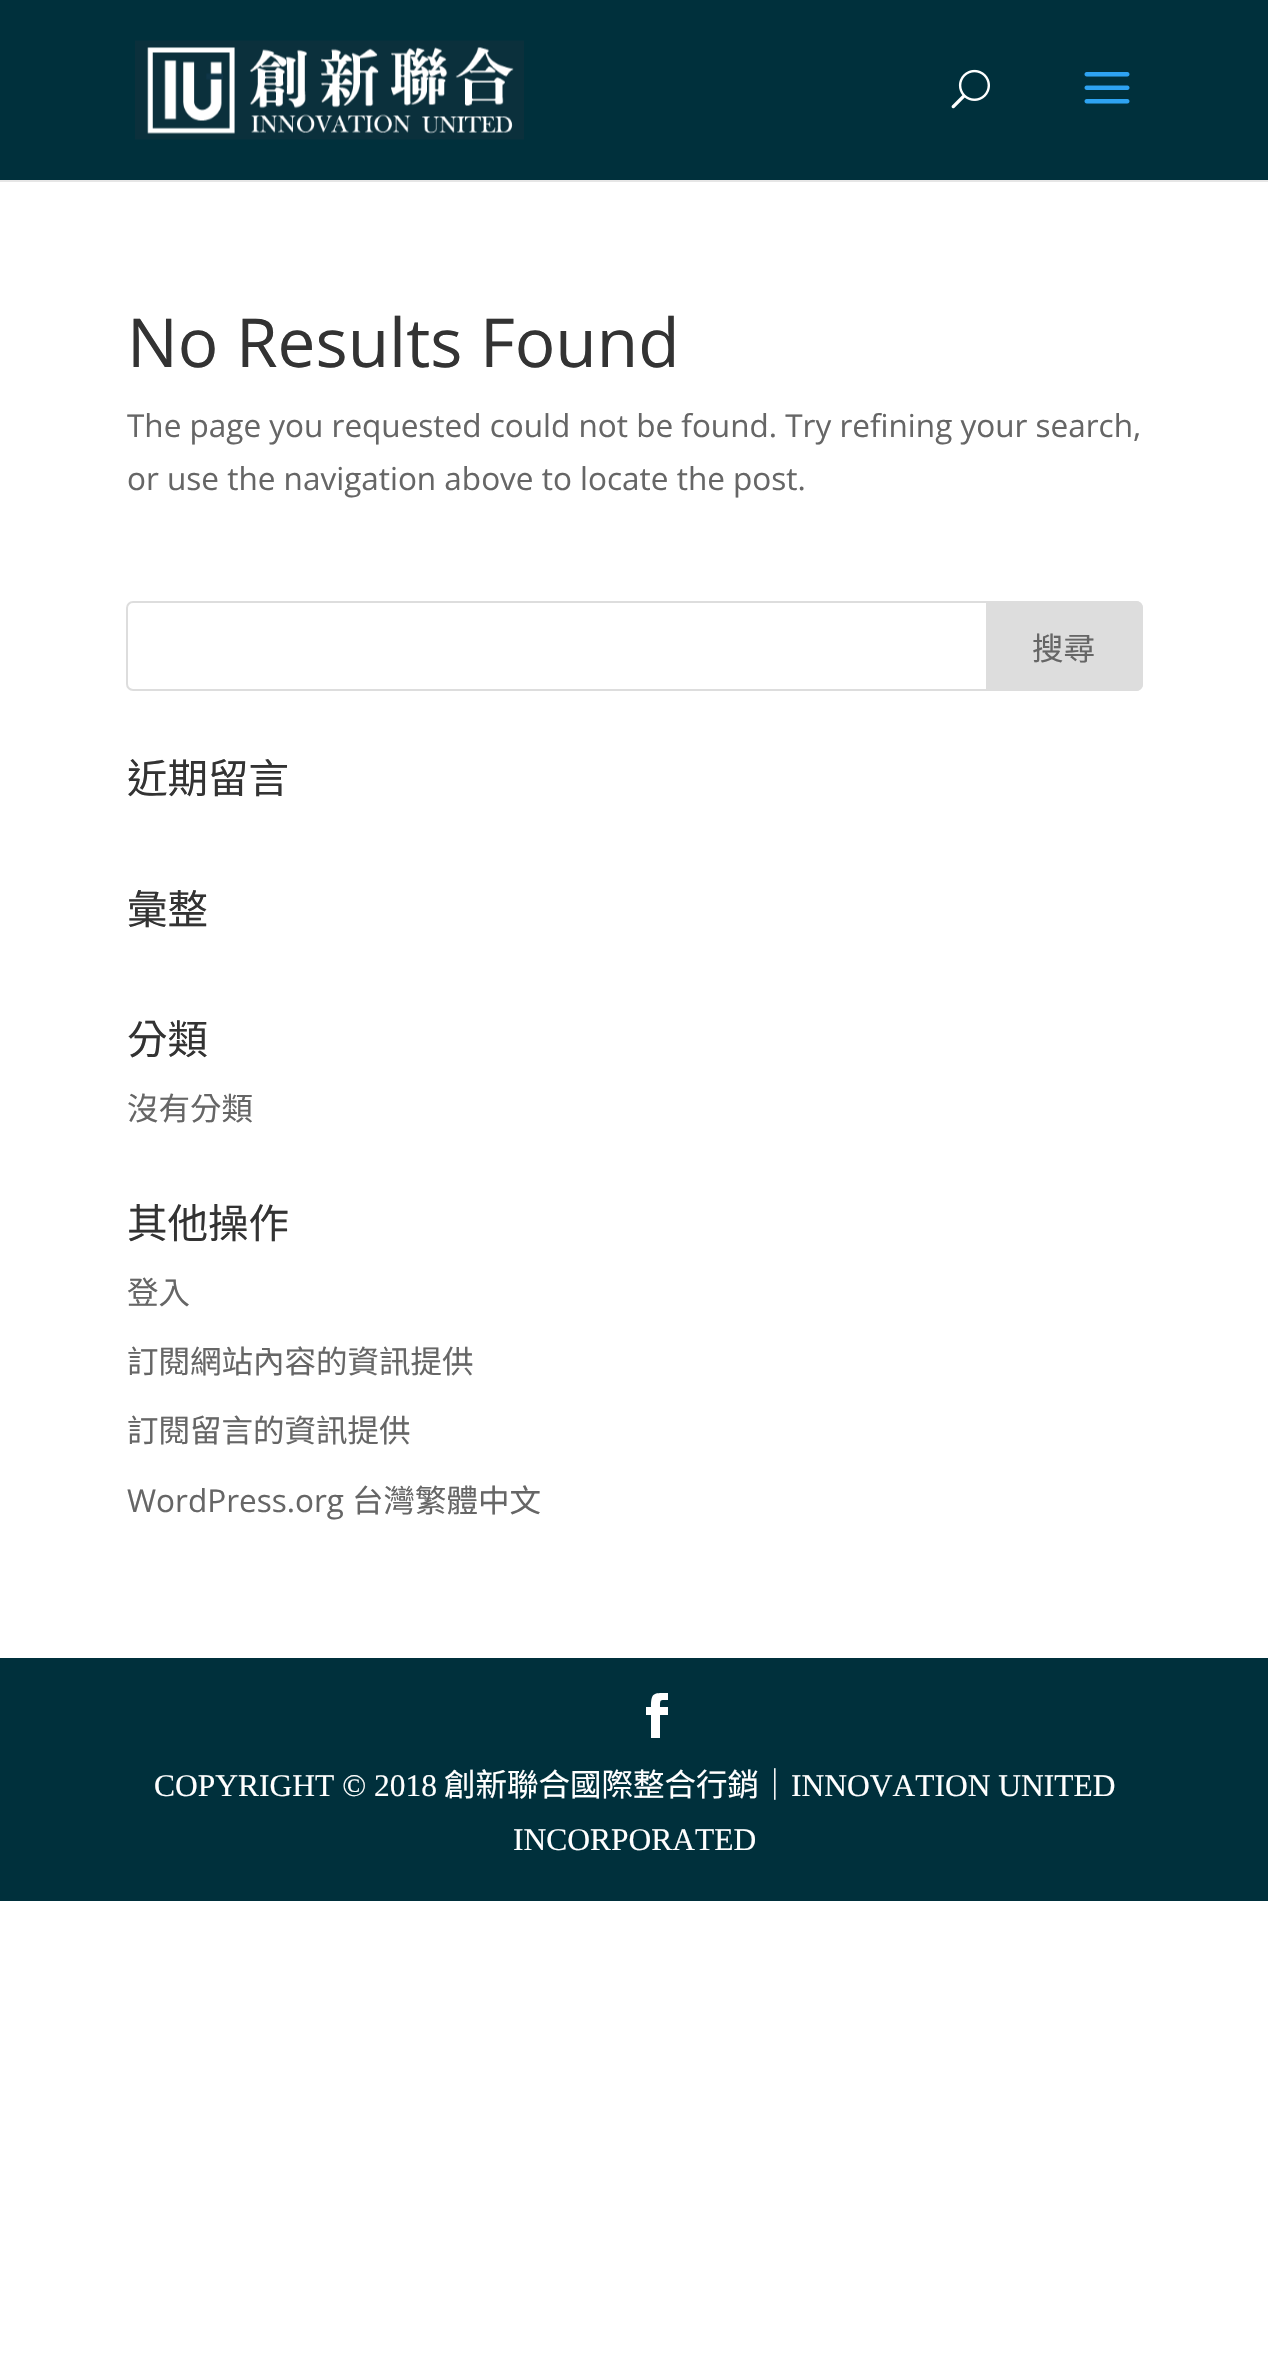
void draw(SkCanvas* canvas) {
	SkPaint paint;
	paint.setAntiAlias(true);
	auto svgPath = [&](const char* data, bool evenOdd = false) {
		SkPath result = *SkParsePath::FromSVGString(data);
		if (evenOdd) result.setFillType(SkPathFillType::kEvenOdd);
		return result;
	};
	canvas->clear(0xffffffff);
	paint.setColor(0xffe6e6e6);
	canvas->drawRect(SkRect::MakeXYWH(0, 180, 1268, 2), paint);
	paint.setColor(0xff00303c);
	canvas->drawRect(SkRect::MakeXYWH(0, 0, 1268, 180), paint);
	canvas->drawImageRect(SkImages::DeferredFromEncodedData(SkData::MakeFromFileName("img1.png")), SkRect::MakeXYWH(135, 40, 389, 100), SkSamplingOptions());
	canvas->drawImageRect(SkImages::DeferredFromEncodedData(SkData::MakeFromFileName("img2.png")), SkRect::MakeXYWH(951, 69, 39, 40), SkSamplingOptions());
	canvas->drawImageRect(SkImages::DeferredFromEncodedData(SkData::MakeFromFileName("img3.png")), SkRect::MakeXYWH(1084, 72, 46, 32), SkSamplingOptions());
	SkFont f1(fontMgr->matchFamilyStyle("Open Sans", SkFontStyle::Normal()), 67.5);
	f1.setSubpixel(true);
	paint.setColor(0xff333333);
	canvas->drawString("No Results Found", 127, 367, f1, paint);
	SkFont f2(fontMgr->matchFamilyStyle("Open Sans", SkFontStyle::Normal()), 31.5);
	f2.setSubpixel(true);
	paint.setColor(0xff666666);
	canvas->drawString("The page you requested could not be found. Try refining your search,", 127, 437, f2, paint);
	canvas->drawString("or use the navigation above to locate the post.", 127, 490, f2, paint);
	paint.setStroke(true);
	paint.setStrokeWidth(2);
	paint.setColor(0xffdddddd);
	canvas->drawRoundRect(SkRect::MakeXYWH(127, 602, 1015, 88), 6, 6, paint);
	paint.setStroke(false);
	canvas->drawPath(svgPath("M987 602H1136C1139.5 602 1142 604.5 1142 608V684C1142 687.5 1139.5 690 1136 690H987Z"), paint);
	paint.setStroke(true);
	canvas->drawPath(svgPath("M987 602H1136C1139.5 602 1142 604.5 1142 608V684C1142 687.5 1139.5 690 1136 690H987Z"), paint);
	SkFont f3(fontMgr->matchFamilyStyle("Noto Sans CJK TC", SkFontStyle::Normal()), 31.5);
	f3.setSubpixel(true);
	paint.setStroke(false);
	paint.setColor(0xff666666);
	canvas->drawString("搜尋", 1032, 660, f3, paint);
	SkFont f4(fontMgr->matchFamilyStyle("Noto Sans CJK TC", SkFontStyle::Normal()), 40.5);
	f4.setSubpixel(true);
	paint.setColor(0xff333333);
	canvas->drawString("近期留言", 127, 793, f4, paint);
	canvas->drawString("彙整", 127, 924, f4, paint);
	canvas->drawString("分類", 127, 1054, f4, paint);
	paint.setColor(0xff666666);
	canvas->drawString("沒有分類", 127, 1120, f3, paint);
	paint.setColor(0xff333333);
	canvas->drawString("其他操作", 127, 1238, f4, paint);
	paint.setColor(0xff666666);
	canvas->drawString("登入", 127, 1304, f3, paint);
	canvas->drawString("訂閱網站內容的資訊提供", 127, 1373, f3, paint);
	canvas->drawString("訂閱留言的資訊提供", 127, 1442, f3, paint);
	canvas->drawString("WordPress.org", 127, 1512, f2, paint);
	canvas->drawString("台灣繁體中文", 352, 1512, f3, paint);
	paint.setColor(0xff00303c);
	canvas->drawRect(SkRect::MakeXYWH(0, 1658, 1268, 243), paint);
	paint.setColor(0xffffffff);
	canvas->drawPath(svgPath("M651 1738H660V1715H668V1707H660C660 1699 660 1700 668 1700V1693C654 1693 651 1692 651 1707H646V1715H651Z"), paint);
	SkFont f5(fontMgr->matchFamilyStyle("Liberation Serif", SkFontStyle::Normal()), 31.5);
	f5.setSubpixel(true);
	canvas->drawString("COPYRIGHT © 2018", 154, 1796, f5, paint);
	canvas->drawString("創新聯合國際整合行銷｜", 444, 1796, f3, paint);
	canvas->drawString("INNOVATION UNITED", 791, 1796, f5, paint);
	canvas->drawString("INCORPORATED", 513, 1850, f5, paint);
}
